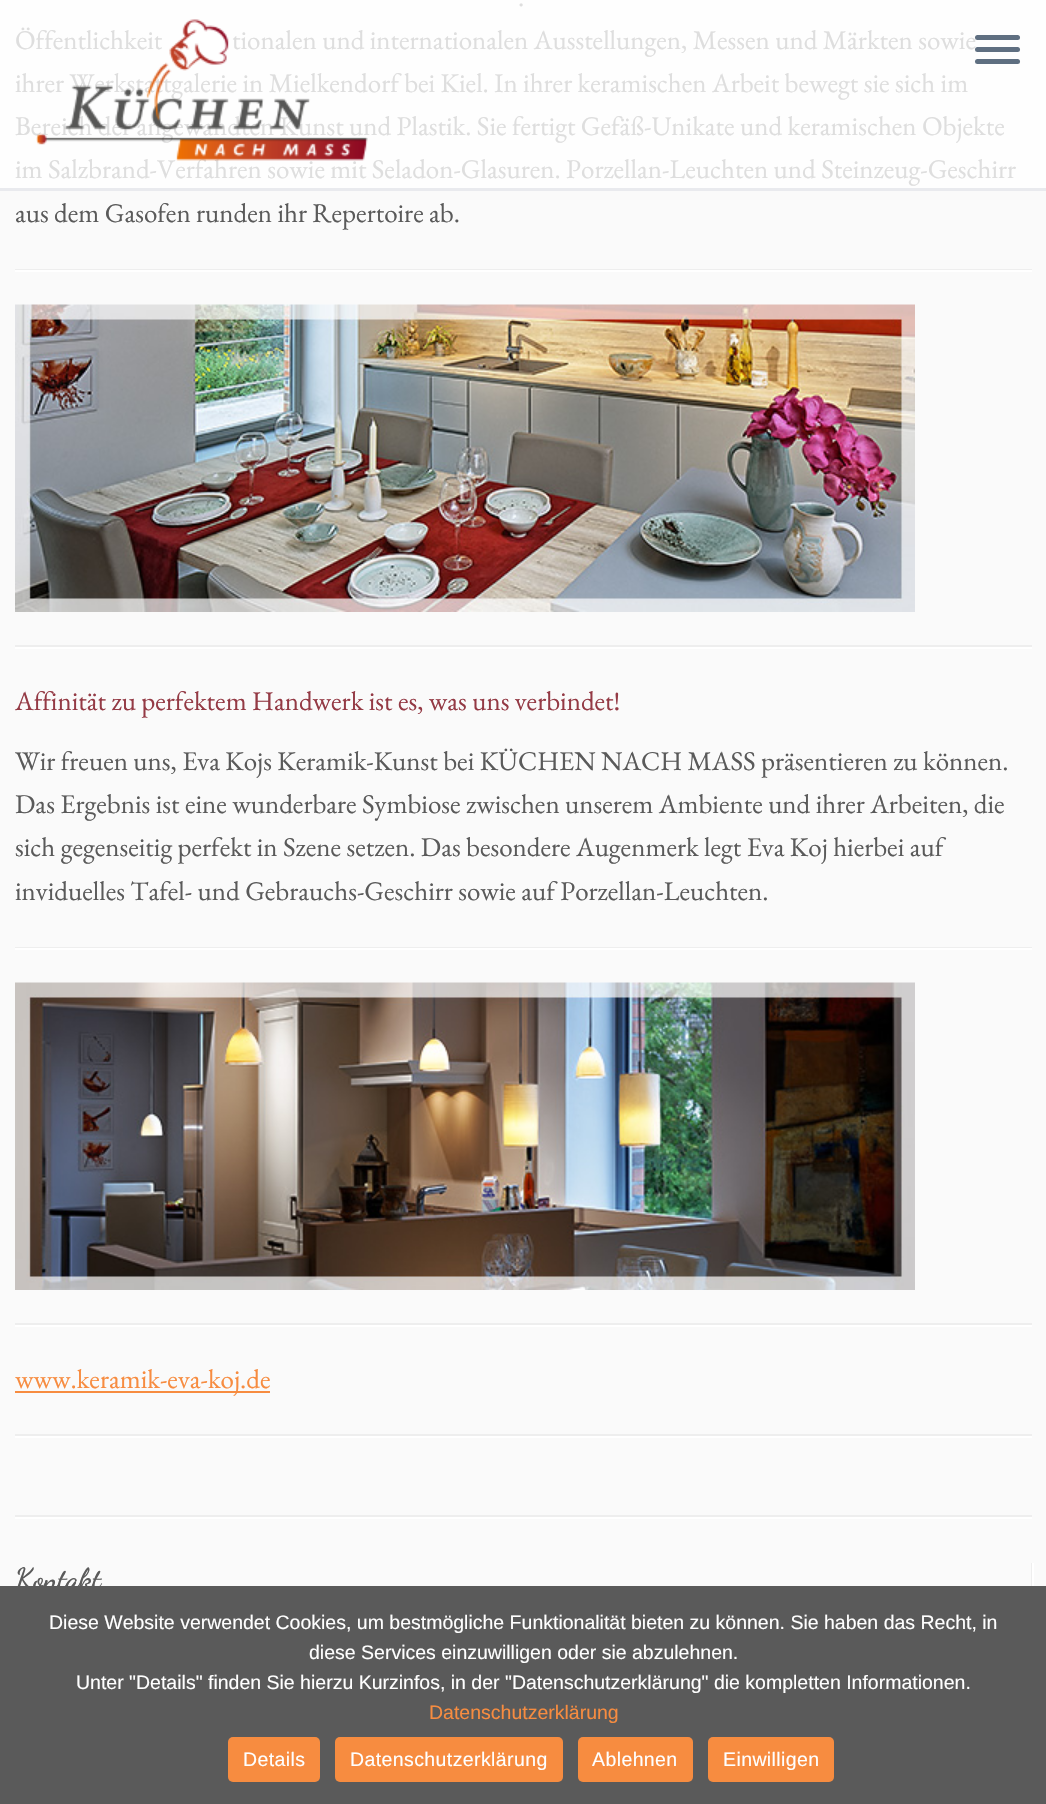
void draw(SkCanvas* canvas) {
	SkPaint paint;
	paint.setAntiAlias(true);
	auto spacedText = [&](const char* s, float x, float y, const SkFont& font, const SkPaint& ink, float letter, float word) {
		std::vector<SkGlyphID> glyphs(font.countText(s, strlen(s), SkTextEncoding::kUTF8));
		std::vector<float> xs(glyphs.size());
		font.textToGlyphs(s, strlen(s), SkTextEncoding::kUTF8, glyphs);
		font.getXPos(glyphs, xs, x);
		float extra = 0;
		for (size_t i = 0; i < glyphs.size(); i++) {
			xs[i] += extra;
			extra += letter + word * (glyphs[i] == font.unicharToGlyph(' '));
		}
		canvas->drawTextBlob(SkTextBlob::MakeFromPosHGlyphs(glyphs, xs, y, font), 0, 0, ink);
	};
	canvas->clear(0xfffafafa);
	paint.setColor(0xfffefefe);
	canvas->drawRect(SkRect::MakeXYWH(0, 0, 1046, 188), paint);
	SkFont f1(fontMgr->matchFamilyStyle("EB Garamond", SkFontStyle::Normal()), 27);
	f1.setSubpixel(true);
	paint.setColor(0xffdedede);
	canvas->drawString(".", 518, 6, f1, paint);
	canvas->drawString("Öffentlichkeit", 15, 49, f1, paint);
	canvas->drawString("tionalen und internationalen Ausstellungen, Messen und Märkten sowie", 232, 49, f1, paint);
	canvas->drawString("ihrer Werkstattgalerie in Mielkendorf bei Kiel. In ihrer keramischen Arbeit bewegt sie sich im", 15, 92, f1, paint);
	canvas->drawString("Bereich der angewandten Kunst und Plastik. Sie fertigt Gefäß-Unikate und keramischen Objekte", 15, 135, f1, paint);
	canvas->drawString("im Salzbrand-Verfahren sowie mit Seladon-Glasuren. Porzellan-Leuchten und Steinzeug-Geschirr", 15, 178, f1, paint);
	paint.setColor(0xff5a5a5a);
	canvas->drawString("aus dem Gasofen runden ihr Repertoire ab.", 15, 222, f1, paint);
	paint.setColor(0xffeeeeee);
	canvas->drawRect(SkRect::MakeXYWH(15, 269, 1017, 1), paint);
	paint.setColor(0xffffffff);
	canvas->drawRect(SkRect::MakeXYWH(15, 270, 1017, 2), paint);
	canvas->drawImageRect(SkImages::DeferredFromEncodedData(SkData::MakeFromFileName("img1.png")), SkRect::MakeXYWH(15, 304, 900, 308), SkSamplingOptions());
	paint.setColor(0xffeeeeee);
	canvas->drawRect(SkRect::MakeXYWH(15, 645, 1017, 2), paint);
	paint.setColor(0xffffffff);
	canvas->drawRect(SkRect::MakeXYWH(15, 647, 1017, 2), paint);
	paint.setColor(0xff943a45);
	canvas->drawString("Affinität zu perfektem Handwerk ist es, was uns verbindet!", 15, 710, f1, paint);
	paint.setColor(0xff5a5a5a);
	canvas->drawString("Wir freuen uns, Eva Kojs Keramik-Kunst bei KÜCHEN NACH MASS präsentieren zu können.", 15, 770, f1, paint);
	canvas->drawString("Das Ergebnis ist eine wunderbare Symbiose zwischen unserem Ambiente und ihrer Arbeiten, die", 15, 813, f1, paint);
	canvas->drawString("sich gegenseitig perfekt in Szene setzen. Das besondere Augenmerk legt Eva Koj hierbei auf", 15, 856, f1, paint);
	canvas->drawString("inviduelles Tafel- und Gebrauchs-Geschirr sowie auf Porzellan-Leuchten.", 15, 900, f1, paint);
	paint.setColor(0xffeeeeee);
	canvas->drawRect(SkRect::MakeXYWH(15, 947, 1017, 1), paint);
	paint.setColor(0xffffffff);
	canvas->drawRect(SkRect::MakeXYWH(15, 948, 1017, 2), paint);
	canvas->drawImageRect(SkImages::DeferredFromEncodedData(SkData::MakeFromFileName("img2.png")), SkRect::MakeXYWH(15, 982, 900, 308), SkSamplingOptions());
	paint.setColor(0xffeeeeee);
	canvas->drawRect(SkRect::MakeXYWH(15, 1323, 1017, 2), paint);
	paint.setColor(0xffffffff);
	canvas->drawRect(SkRect::MakeXYWH(15, 1325, 1017, 2), paint);
	paint.setColor(0xfff78c40);
	canvas->drawRect(SkRect::MakeXYWH(15, 1391, 255, 2), paint);
	canvas->drawString("www.keramik-eva-koj.de", 15, 1388, f1, paint);
	paint.setColor(0xffeeeeee);
	canvas->drawRect(SkRect::MakeXYWH(15, 1434, 1017, 2), paint);
	paint.setColor(0xffffffff);
	canvas->drawRect(SkRect::MakeXYWH(15, 1436, 1017, 2), paint);
	paint.setColor(0xffeeeeee);
	canvas->drawRect(SkRect::MakeXYWH(15, 1515, 1017, 2), paint);
	paint.setColor(0xffffffff);
	canvas->drawRect(SkRect::MakeXYWH(15, 1517, 1017, 2), paint);
	paint.setColor(0xffeeeeee);
	canvas->drawRect(SkRect::MakeXYWH(1031, 1563, 1, 23), paint);
	SkFont f2(fontMgr->matchFamilyStyle("Dancing Script", SkFontStyle::Bold()), 29);
	f2.setSubpixel(true);
	paint.setColor(0xff5a5a5a);
	canvas->drawString("Kontakt", 15, 1588, f2, paint);
	paint.setColor(0xffffffff);
	canvas->drawRect(SkRect::MakeXYWH(1032, 1563, 2, 23), paint);
	paint.setColor(0xffe9eaee);
	canvas->drawRect(SkRect::MakeXYWH(0, 188, 1046, 3), paint);
	canvas->drawImageRect(SkImages::DeferredFromEncodedData(SkData::MakeFromFileName("img3.png")), SkRect::MakeXYWH(36, 19, 332, 142), SkSamplingOptions());
	paint.setColor(0xff5f6f81);
	canvas->drawRoundRect(SkRect::MakeXYWH(975, 35, 45, 5), 2.5, 2.5, paint);
	canvas->drawRoundRect(SkRect::MakeXYWH(975, 47, 45, 5), 2.5, 2.5, paint);
	canvas->drawRoundRect(SkRect::MakeXYWH(975, 59, 45, 5), 2.5, 2.5, paint);
	paint.setColor(0xff5a5a5a);
	canvas->drawRect(SkRect::MakeXYWH(0, 1586, 1046, 218), paint);
	SkFont f3(fontMgr->matchFamilyStyle("Liberation Sans", SkFontStyle::Normal()), 19.5);
	f3.setSubpixel(true);
	paint.setColor(0xffffffff);
	canvas->drawString("Diese Website verwendet Cookies, um bestmögliche Funktionalität bieten zu können. Sie haben das Recht, in", 49, 1629, f3, paint);
	canvas->drawString("diese Services einzuwilligen oder sie abzulehnen.", 309, 1659, f3, paint);
	canvas->drawString("Unter \"Details\" finden Sie hierzu Kurzinfos, in der \"Datenschutzerklärung\" die kompletten Informationen.", 76, 1689, f3, paint);
	paint.setColor(0xfff78c40);
	canvas->drawString("Datenschutzerklärung", 429, 1719, f3, paint);
	canvas->drawRoundRect(SkRect::MakeXYWH(228, 1737, 92, 45), 5, 5, paint);
	paint.setColor(0xffffffff);
	spacedText("Details", 243, 1766, f3, paint, 0.4, 0);
	paint.setColor(0xfff78c40);
	canvas->drawRoundRect(SkRect::MakeXYWH(335, 1737, 228, 45), 5, 5, paint);
	paint.setColor(0xffffffff);
	spacedText("Datenschutzerklärung", 350, 1766, f3, paint, 0.4, 0);
	paint.setColor(0xfff78c40);
	canvas->drawRoundRect(SkRect::MakeXYWH(578, 1737, 115, 45), 5, 5, paint);
	paint.setColor(0xffffffff);
	spacedText("Ablehnen", 592, 1766, f3, paint, 0.4, 0);
	paint.setColor(0xfff78c40);
	canvas->drawRoundRect(SkRect::MakeXYWH(708, 1737, 126, 45), 5, 5, paint);
	paint.setColor(0xffffffff);
	spacedText("Einwilligen", 723, 1766, f3, paint, 0.4, 0);
}
